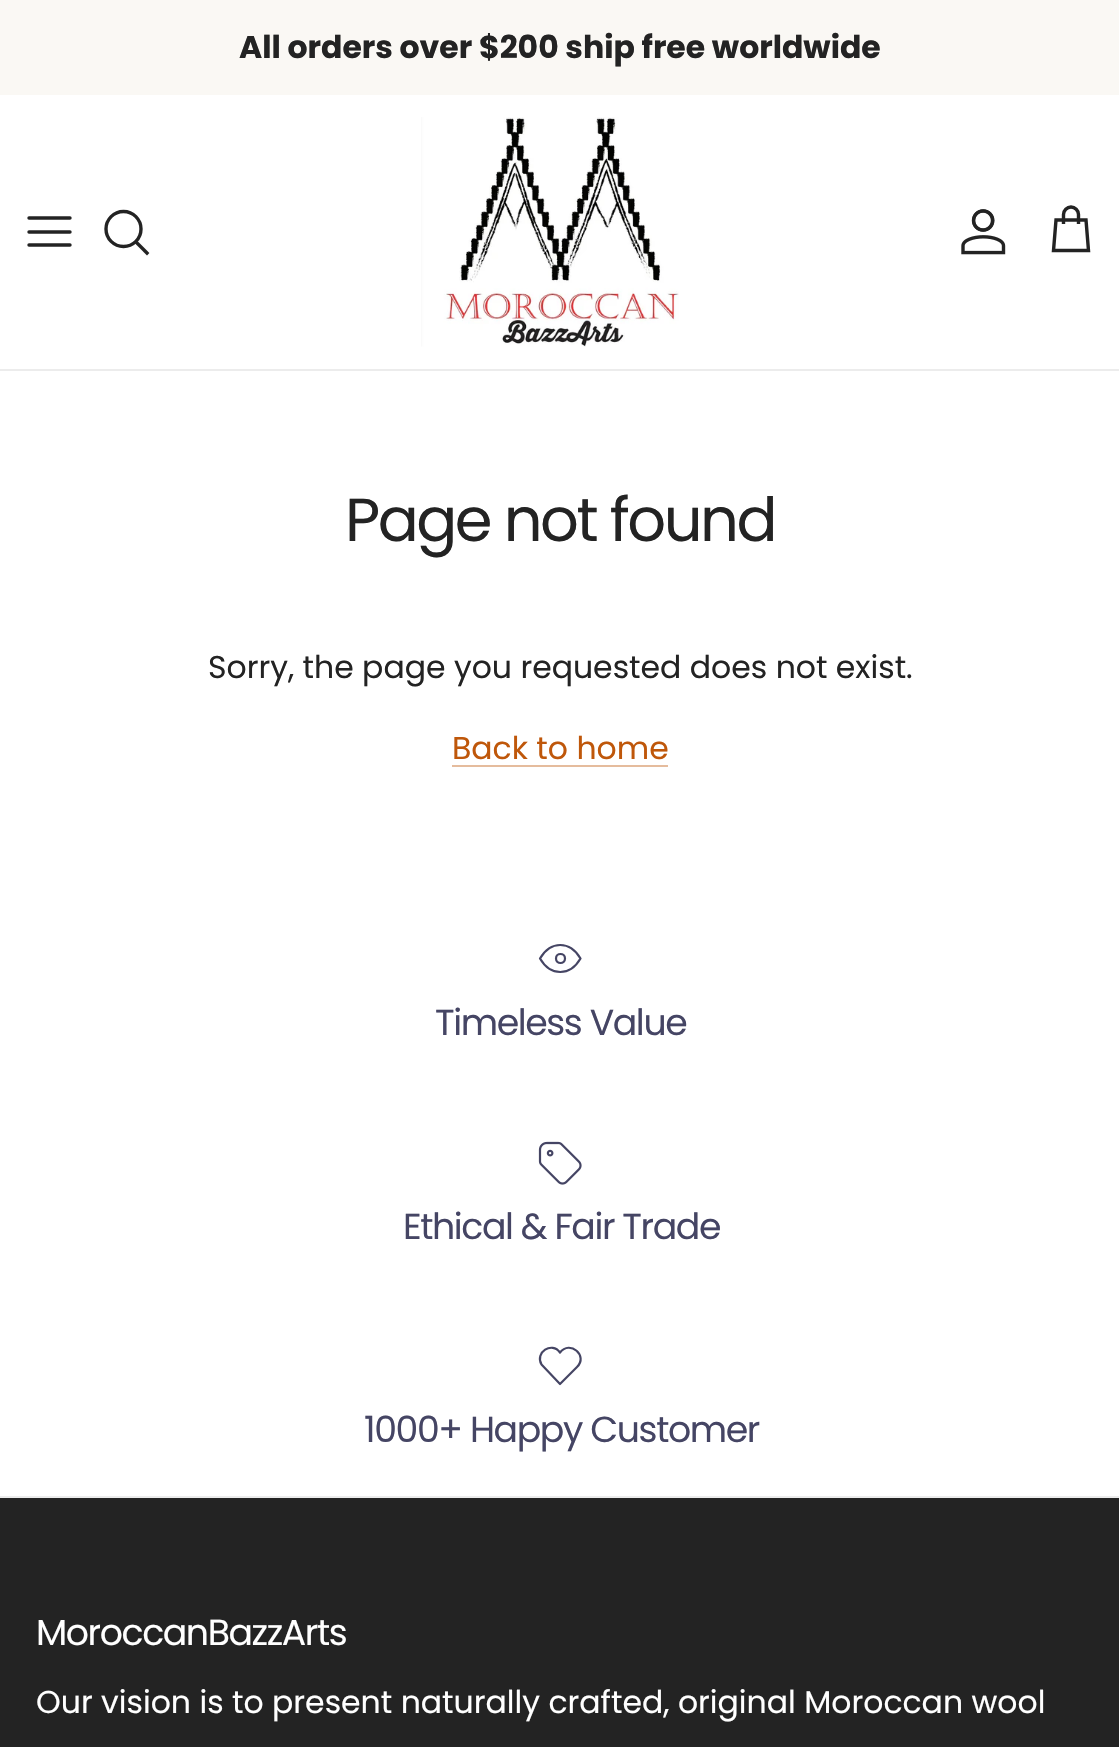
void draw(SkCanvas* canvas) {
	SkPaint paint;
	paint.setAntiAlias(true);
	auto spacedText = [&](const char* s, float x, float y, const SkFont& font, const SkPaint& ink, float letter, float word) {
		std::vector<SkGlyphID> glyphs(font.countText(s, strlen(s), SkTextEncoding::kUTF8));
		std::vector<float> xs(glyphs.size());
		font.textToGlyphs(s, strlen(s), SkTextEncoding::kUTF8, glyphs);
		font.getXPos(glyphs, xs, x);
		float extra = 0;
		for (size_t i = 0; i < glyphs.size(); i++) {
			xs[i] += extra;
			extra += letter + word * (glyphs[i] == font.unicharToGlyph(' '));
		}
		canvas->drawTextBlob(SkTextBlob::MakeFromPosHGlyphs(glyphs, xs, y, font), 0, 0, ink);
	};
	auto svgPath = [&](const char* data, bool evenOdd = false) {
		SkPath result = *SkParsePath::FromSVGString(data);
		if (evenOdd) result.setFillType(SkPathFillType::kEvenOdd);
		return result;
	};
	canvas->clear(0xffffffff);
	paint.setColor(0xfffaf8f4);
	canvas->drawRect(SkRect::MakeXYWH(0, 0, 1119, 95), paint);
	SkFont f1(fontMgr->matchFamilyStyle("Poppins", SkFontStyle::Bold()), 31.5);
	f1.setSubpixel(true);
	paint.setColor(0xff232323);
	canvas->drawString("All orders over $200 ship free worldwide", 239, 58, f1, paint);
	paint.setColor(0xffececec);
	canvas->drawRect(SkRect::MakeXYWH(0, 369, 1119, 2), paint);
	paint.setStroke(true);
	paint.setStrokeWidth(3.4);
	paint.setStrokeCap(SkPaint::kRound_Cap);
	paint.setStrokeJoin(SkPaint::kRound_Join);
	paint.setColor(0xff232323);
	canvas->drawPath(svgPath("M29 232H70M29 218H70M29 245H70"), paint);
	paint.setStrokeCap(SkPaint::kButt_Cap);
	paint.setStrokeJoin(SkPaint::kMiter_Join);
	canvas->drawCircle(123.5, 229, 17.5, paint);
	paint.setStrokeCap(SkPaint::kSquare_Cap);
	canvas->drawPath(svgPath("M137 243L147 253"), paint);
	canvas->drawImageRect(SkImages::DeferredFromEncodedData(SkData::MakeFromFileName("img1.png")), SkRect::MakeXYWH(421, 117, 258, 230), SkSamplingOptions());
	canvas->drawImageRect(SkImages::DeferredFromEncodedData(SkData::MakeFromFileName("img2.png")), SkRect::MakeXYWH(961, 209, 45, 46), SkSamplingOptions());
	paint.setStrokeCap(SkPaint::kButt_Cap);
	canvas->drawPath(svgPath("M1078.5 224V214.5C1078.5 210.5 1075 207 1071 207C1067 207 1063.5 210.5 1063.5 214.5V224M1056 220H1086L1088.5 250.5H1053.5Z"), paint);
	SkFont f2(fontMgr->matchFamilyStyle("Poppins", SkFontStyle::Normal()), 60.75);
	f2.setSubpixel(true);
	paint.setStroke(false);
	spacedText("Page not found", 345, 541, f2, paint, -2.5, 0);
	SkFont f3(fontMgr->matchFamilyStyle("Poppins", SkFontStyle::Normal()), 31.5);
	f3.setSubpixel(true);
	canvas->drawString("Sorry, the page you requested does not exist.", 208, 678, f3, paint);
	paint.setColor(0xffbf570a);
	canvas->drawString("Back to home", 452, 759, f3, paint);
	paint.setColor(0xffe5bc9d);
	canvas->drawRect(SkRect::MakeXYWH(452, 765, 216, 2), paint);
	paint.setStroke(true);
	paint.setStrokeWidth(2.2);
	paint.setStrokeCap(SkPaint::kRound_Cap);
	paint.setStrokeJoin(SkPaint::kRound_Join);
	paint.setColor(0xff454564);
	canvas->drawPath(svgPath("M556 958.5C556 964.5 565 964.5 565 958.5C565 952.5 556 952.5 556 958.5M580.5 958.5C570 976.5 550.5 976.5 540 958.5C550.5 940.5 570 940.5 580.5 958.5"), paint);
	SkFont f4(fontMgr->matchFamilyStyle("Poppins", SkFontStyle::Normal()), 36.25);
	f4.setSubpixel(true);
	paint.setStroke(false);
	spacedText("Timeless Value", 435, 1035, f4, paint, -1.4, 0);
	canvas->drawImageRect(SkImages::DeferredFromEncodedData(SkData::MakeFromFileName("img3.png")), SkRect::MakeXYWH(538, 1141, 44, 44), SkSamplingOptions());
	spacedText("Ethical & Fair Trade", 403, 1239, f4, paint, -1.4, 0);
	paint.setStroke(true);
	canvas->drawPath(svgPath("M577 1367L560 1384L541.5 1364.5C534.5 1352.5 552 1341 560 1352.5C570 1339.5 588.5 1356 577 1367"), paint);
	paint.setStroke(false);
	spacedText("1000+ Happy Customer", 364, 1442, f4, paint, -1.4, 0);
	paint.setColor(0xff232323);
	canvas->drawRect(SkRect::MakeXYWH(0, 1498, 1119, 249), paint);
	paint.setColor(0xffececec);
	canvas->drawRect(SkRect::MakeXYWH(0, 1496, 1119, 2), paint);
	paint.setColor(0xffffffff);
	spacedText("MoroccanBazzArts", 36, 1645, f4, paint, -1.4, 0);
	canvas->drawString("Our vision is to present naturally crafted, original Moroccan wool", 36, 1713, f3, paint);
}
